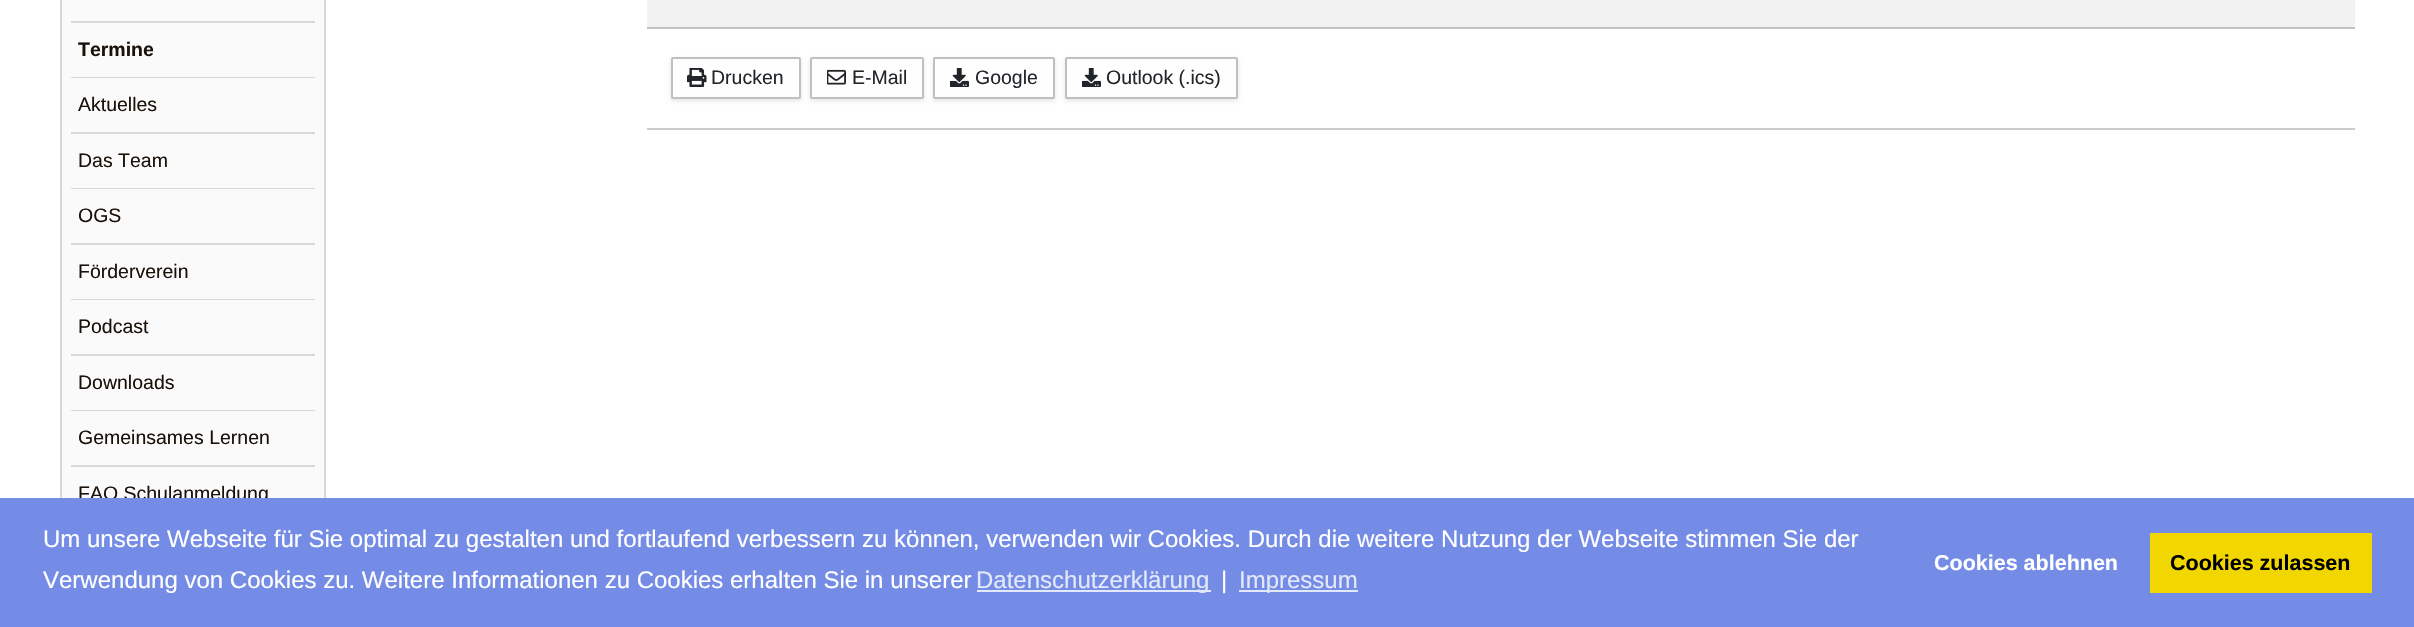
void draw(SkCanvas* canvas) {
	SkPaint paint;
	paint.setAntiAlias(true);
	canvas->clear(0xffffffff);
	paint.setColor(0xfffafafa);
	canvas->drawRect(SkRect::MakeXYWH(62, 0, 262, 498), paint);
	paint.setStroke(true);
	paint.setStrokeWidth(2);
	paint.setColor(0xffd8d8d8);
	canvas->drawRect(SkRect::MakeXYWH(61, -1, 264, 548), paint);
	paint.setStroke(false);
	canvas->drawRect(SkRect::MakeXYWH(71, 21, 244, 2), paint);
	canvas->drawRect(SkRect::MakeXYWH(71, 77, 244, 1), paint);
	SkFont f1(fontMgr->matchFamilyStyle("Liberation Sans", SkFontStyle::Bold()), 19.5);
	f1.setSubpixel(true);
	paint.setColor(0xff1a1109);
	canvas->drawString("Termine", 78, 56, f1, paint);
	paint.setColor(0xffd8d8d8);
	canvas->drawRect(SkRect::MakeXYWH(71, 132, 244, 2), paint);
	SkFont f2(fontMgr->matchFamilyStyle("Liberation Sans", SkFontStyle::Normal()), 19.5);
	f2.setSubpixel(true);
	paint.setColor(0xff1a1109);
	canvas->drawString("Aktuelles", 78, 111, f2, paint);
	paint.setColor(0xffd8d8d8);
	canvas->drawRect(SkRect::MakeXYWH(71, 188, 244, 1), paint);
	paint.setColor(0xff1a1109);
	canvas->drawString("Das Team", 78, 167, f2, paint);
	paint.setColor(0xffd8d8d8);
	canvas->drawRect(SkRect::MakeXYWH(71, 243, 244, 2), paint);
	paint.setColor(0xff1a1109);
	canvas->drawString("OGS", 78, 222, f2, paint);
	paint.setColor(0xffd8d8d8);
	canvas->drawRect(SkRect::MakeXYWH(71, 299, 244, 1), paint);
	paint.setColor(0xff1a1109);
	canvas->drawString("Förderverein", 78, 278, f2, paint);
	paint.setColor(0xffd8d8d8);
	canvas->drawRect(SkRect::MakeXYWH(71, 354, 244, 2), paint);
	paint.setColor(0xff1a1109);
	canvas->drawString("Podcast", 78, 333, f2, paint);
	paint.setColor(0xffd8d8d8);
	canvas->drawRect(SkRect::MakeXYWH(71, 410, 244, 1), paint);
	paint.setColor(0xff1a1109);
	canvas->drawString("Downloads", 78, 389, f2, paint);
	paint.setColor(0xffd8d8d8);
	canvas->drawRect(SkRect::MakeXYWH(71, 465, 244, 2), paint);
	paint.setColor(0xff1a1109);
	canvas->drawString("Gemeinsames Lernen", 78, 444, f2, paint);
	canvas->drawString("FAQ Schulanmeldung", 78, 500, f2, paint);
	paint.setColor(0xfff2f2f2);
	canvas->drawRect(SkRect::MakeXYWH(647, 0, 1708, 27), paint);
	paint.setColor(0xffc2c2c2);
	canvas->drawRect(SkRect::MakeXYWH(647, 27, 1708, 2), paint);
	paint.setColor(0xffcccccc);
	canvas->drawRect(SkRect::MakeXYWH(647, 128, 1708, 2), paint);
	paint.setColor(0x1a000000);
	paint.setMaskFilter(SkMaskFilter::MakeBlur(kNormal_SkBlurStyle, 2));
	canvas->drawRoundRect(SkRect::MakeXYWH(671, 59, 130, 42), 2, 2, paint);
	paint.setMaskFilter(nullptr);
	paint.setColor(0xfffefefe);
	canvas->drawRoundRect(SkRect::MakeXYWH(672, 58, 128, 40), 1, 1, paint);
	paint.setStroke(true);
	paint.setColor(0xffc0c0c0);
	canvas->drawRoundRect(SkRect::MakeXYWH(672, 58, 128, 40), 1, 1, paint);
	canvas->drawImageRect(SkImages::DeferredFromEncodedData(SkData::MakeFromFileName("img1.png")), SkRect::MakeXYWH(687, 68, 20, 19), SkSamplingOptions());
	paint.setStroke(false);
	paint.setColor(0xff212529);
	canvas->drawString("Drucken", 711, 84, f2, paint);
	paint.setColor(0x1a000000);
	paint.setMaskFilter(SkMaskFilter::MakeBlur(kNormal_SkBlurStyle, 2));
	canvas->drawRoundRect(SkRect::MakeXYWH(810, 59, 114, 42), 2, 2, paint);
	paint.setMaskFilter(nullptr);
	paint.setColor(0xfffefefe);
	canvas->drawRoundRect(SkRect::MakeXYWH(811, 58, 112, 40), 1, 1, paint);
	paint.setStroke(true);
	paint.setColor(0xffc0c0c0);
	canvas->drawRoundRect(SkRect::MakeXYWH(811, 58, 112, 40), 1, 1, paint);
	canvas->drawImageRect(SkImages::DeferredFromEncodedData(SkData::MakeFromFileName("img2.png")), SkRect::MakeXYWH(827, 69, 19, 16), SkSamplingOptions());
	paint.setStroke(false);
	paint.setColor(0xff212529);
	canvas->drawString("E-Mail", 852, 84, f2, paint);
	paint.setColor(0x1a000000);
	paint.setMaskFilter(SkMaskFilter::MakeBlur(kNormal_SkBlurStyle, 2));
	canvas->drawRoundRect(SkRect::MakeXYWH(933, 59, 122, 42), 2, 2, paint);
	paint.setMaskFilter(nullptr);
	paint.setColor(0xfffefefe);
	canvas->drawRoundRect(SkRect::MakeXYWH(934, 58, 120, 40), 1, 1, paint);
	paint.setStroke(true);
	paint.setColor(0xffc0c0c0);
	canvas->drawRoundRect(SkRect::MakeXYWH(934, 58, 120, 40), 1, 1, paint);
	canvas->drawImageRect(SkImages::DeferredFromEncodedData(SkData::MakeFromFileName("img3.png")), SkRect::MakeXYWH(950, 68, 19, 19), SkSamplingOptions());
	paint.setStroke(false);
	paint.setColor(0xff212529);
	canvas->drawString("Google", 975, 84, f2, paint);
	paint.setColor(0x1a000000);
	paint.setMaskFilter(SkMaskFilter::MakeBlur(kNormal_SkBlurStyle, 2));
	canvas->drawRoundRect(SkRect::MakeXYWH(1065, 59, 173, 42), 2, 2, paint);
	paint.setMaskFilter(nullptr);
	paint.setColor(0xfffefefe);
	canvas->drawRoundRect(SkRect::MakeXYWH(1066, 58, 171, 40), 1, 1, paint);
	paint.setStroke(true);
	paint.setColor(0xffc0c0c0);
	canvas->drawRoundRect(SkRect::MakeXYWH(1066, 58, 171, 40), 1, 1, paint);
	canvas->drawImageRect(SkImages::DeferredFromEncodedData(SkData::MakeFromFileName("img3.png")), SkRect::MakeXYWH(1082, 68, 19, 19), SkSamplingOptions());
	paint.setStroke(false);
	paint.setColor(0xff212529);
	canvas->drawString("Outlook (.ics)", 1106, 84, f2, paint);
	paint.setColor(0xff758ce6);
	canvas->drawRect(SkRect::MakeXYWH(0, 498, 2414, 129), paint);
	SkFont f3(fontMgr->matchFamilyStyle("Liberation Sans", SkFontStyle::Normal()), 24);
	f3.setSubpixel(true);
	paint.setColor(0xffffffff);
	canvas->drawString("Um unsere Webseite für Sie optimal zu gestalten und fortlaufend verbessern zu können, verwenden wir Cookies. Durch die weitere Nutzung der Webseite stimmen Sie der", 43, 547, f3, paint);
	canvas->drawString("Verwendung von Cookies zu. Weitere Informationen zu Cookies erhalten Sie in unserer", 43, 588, f3, paint);
	paint.setColor(0xffe3e8fa);
	canvas->drawRect(SkRect::MakeXYWH(977, 590, 234, 2), paint);
	canvas->drawString("Datenschutzerklärung", 976, 588, f3, paint);
	paint.setColor(0xffffffff);
	canvas->drawString("|", 1221, 588, f3, paint);
	paint.setColor(0xffe3e8fa);
	canvas->drawRect(SkRect::MakeXYWH(1239, 590, 119, 2), paint);
	canvas->drawString("Impressum", 1239, 588, f3, paint);
	SkFont f4(fontMgr->matchFamilyStyle("Liberation Sans", SkFontStyle::Bold()), 21.5);
	f4.setSubpixel(true);
	paint.setColor(0xffffffff);
	canvas->drawString("Cookies ablehnen", 1934, 570, f4, paint);
	paint.setColor(0xfff1d600);
	canvas->drawRect(SkRect::MakeXYWH(2150, 533, 222, 60), paint);
	paint.setColor(0xff000000);
	canvas->drawString("Cookies zulassen", 2170, 570, f4, paint);
}
